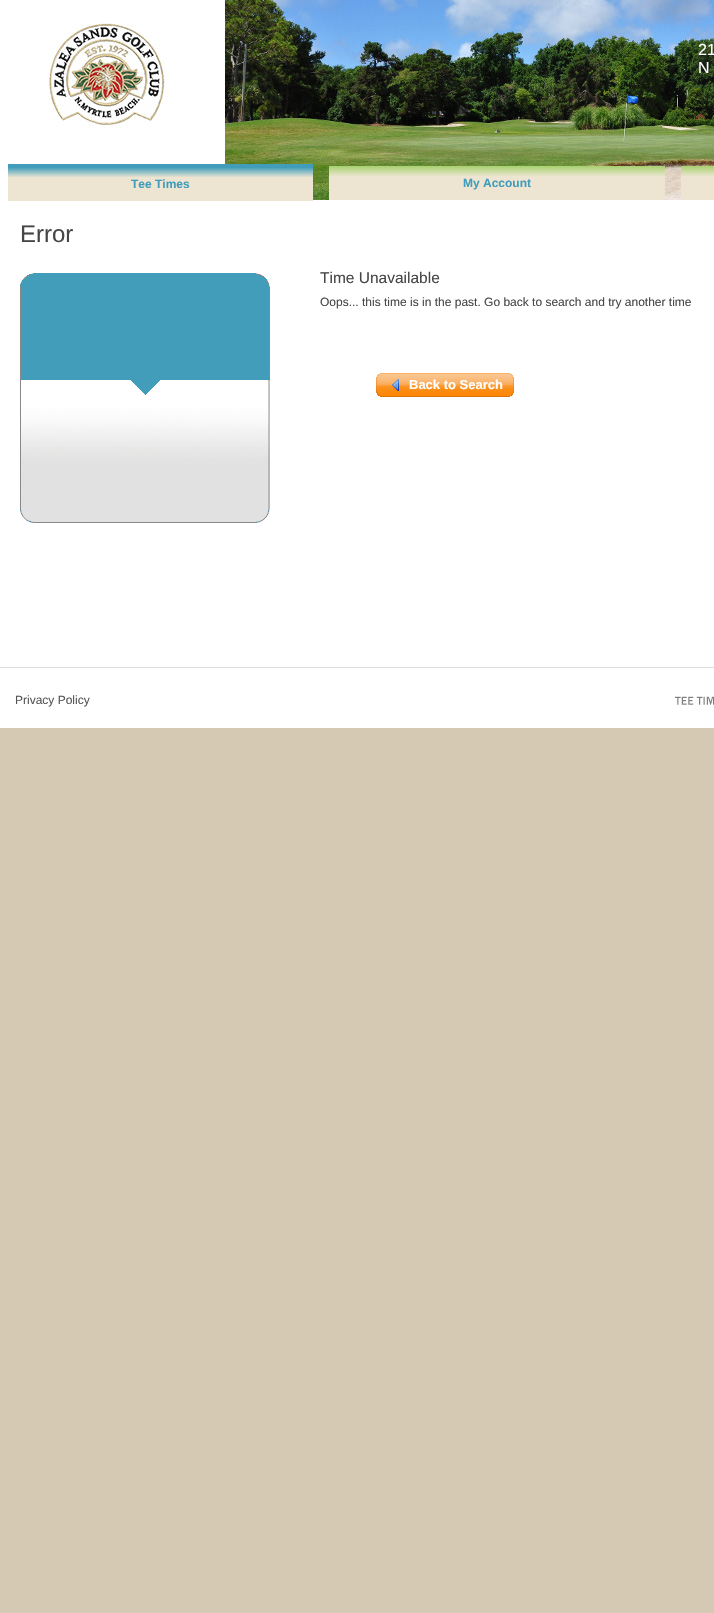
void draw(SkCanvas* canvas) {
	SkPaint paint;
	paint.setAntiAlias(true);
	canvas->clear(0xffd5c9b4);
	paint.setColor(0xffffffff);
	canvas->drawRect(SkRect::MakeXYWH(0, 0, 714, 728), paint);
	canvas->drawImageRect(SkImages::DeferredFromEncodedData(SkData::MakeFromFileName("img1.png")), SkRect::MakeXYWH(48, 0, 666, 200), SkSamplingOptions());
	SkFont f1(fontMgr->matchFamilyStyle("Liberation Sans", SkFontStyle::Normal()), 16);
	f1.setSubpixel(true);
	canvas->drawString("21", 698, 55, f1, paint);
	canvas->drawString("N", 698, 73, f1, paint);
	canvas->drawImageRect(SkImages::DeferredFromEncodedData(SkData::MakeFromFileName("img2.png")), SkRect::MakeXYWH(8, 167, 305, 34), SkSamplingOptions());
	paint.setColor(0xff429dba);
	canvas->drawRect(SkRect::MakeXYWH(8, 164, 305, 3), paint);
	SkFont f2(fontMgr->matchFamilyStyle("Liberation Sans", SkFontStyle::Bold()), 12);
	f2.setSubpixel(true);
	canvas->drawString("Tee Times", 131, 188, f2, paint);
	canvas->drawImageRect(SkImages::DeferredFromEncodedData(SkData::MakeFromFileName("img3.png")), SkRect::MakeXYWH(329, 166, 336, 34), SkSamplingOptions());
	canvas->drawString("My Account", 463, 187, f2, paint);
	canvas->drawImageRect(SkImages::DeferredFromEncodedData(SkData::MakeFromFileName("img4.png")), SkRect::MakeXYWH(681, 166, 33, 34), SkSamplingOptions());
	SkFont f3(fontMgr->matchFamilyStyle("Liberation Sans", SkFontStyle::Normal()), 24);
	f3.setSubpixel(true);
	paint.setColor(0xff464646);
	canvas->drawString("Error", 20, 242, f3, paint);
	canvas->drawImageRect(SkImages::DeferredFromEncodedData(SkData::MakeFromFileName("img5.png")), SkRect::MakeXYWH(20, 273, 250, 250), SkSamplingOptions());
	SkFont f4(fontMgr->matchFamilyStyle("Liberation Sans", SkFontStyle::Normal()), 15.5);
	f4.setSubpixel(true);
	canvas->drawString("Time Unavailable", 320, 283, f4, paint);
	SkFont f5(fontMgr->matchFamilyStyle("Liberation Sans", SkFontStyle::Normal()), 12);
	f5.setSubpixel(true);
	canvas->drawString("Oops... this time is in the past. Go back to search and try another time", 320, 306, f5, paint);
	canvas->drawImageRect(SkImages::DeferredFromEncodedData(SkData::MakeFromFileName("img6.png")), SkRect::MakeXYWH(491, 373, 23, 24), SkSamplingOptions());
	canvas->drawImageRect(SkImages::DeferredFromEncodedData(SkData::MakeFromFileName("img7.png")), SkRect::MakeXYWH(376, 373, 115, 24), SkSamplingOptions());
	canvas->drawImageRect(SkImages::DeferredFromEncodedData(SkData::MakeFromFileName("img8.png")), SkRect::MakeXYWH(392, 379, 7, 12), SkSamplingOptions());
	SkFont f6(fontMgr->matchFamilyStyle("Liberation Sans", SkFontStyle::Bold()), 13);
	f6.setSubpixel(true);
	paint.setColor(0xffffffff);
	canvas->drawString("Back to Search", 409, 389, f6, paint);
	paint.setColor(0xffdddddd);
	canvas->drawRect(SkRect::MakeXYWH(0, 667, 714, 1), paint);
	paint.setColor(0xff555555);
	canvas->drawString("Privacy Policy", 15, 704, f5, paint);
	canvas->drawImageRect(SkImages::DeferredFromEncodedData(SkData::MakeFromFileName("img9.png")), SkRect::MakeXYWH(675, 696, 39, 9), SkSamplingOptions());
}
